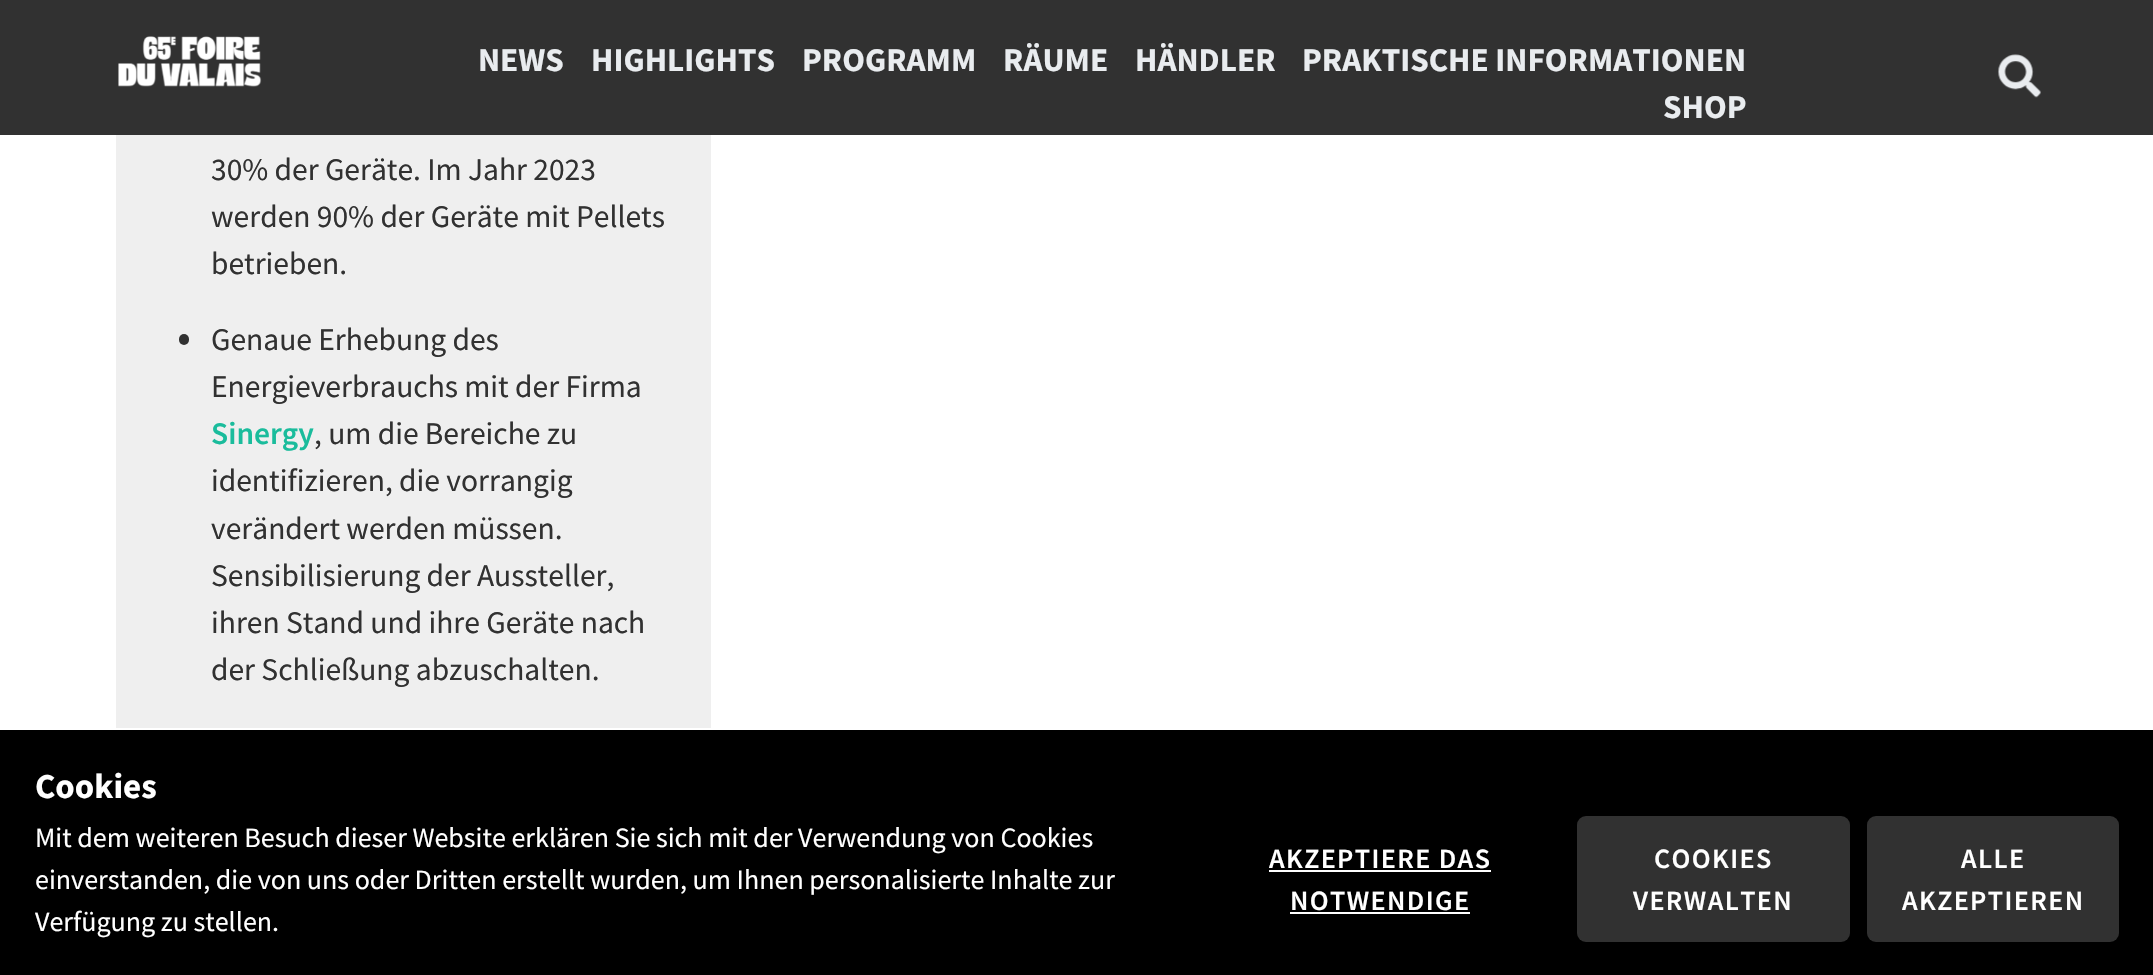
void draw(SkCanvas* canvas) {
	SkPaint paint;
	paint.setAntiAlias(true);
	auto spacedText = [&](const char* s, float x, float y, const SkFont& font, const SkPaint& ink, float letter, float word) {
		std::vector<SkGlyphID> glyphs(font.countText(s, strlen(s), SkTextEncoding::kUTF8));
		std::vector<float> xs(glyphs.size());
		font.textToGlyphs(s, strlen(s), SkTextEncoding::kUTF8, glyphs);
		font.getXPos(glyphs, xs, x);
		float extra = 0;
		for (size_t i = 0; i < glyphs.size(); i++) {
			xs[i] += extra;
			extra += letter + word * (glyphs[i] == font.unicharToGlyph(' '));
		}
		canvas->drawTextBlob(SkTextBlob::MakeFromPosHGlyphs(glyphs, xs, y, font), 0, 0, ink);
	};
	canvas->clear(0xffffffff);
	paint.setColor(0xff313131);
	canvas->drawRect(SkRect::MakeXYWH(0, 0, 2153, 135), paint);
	canvas->drawImageRect(SkImages::DeferredFromEncodedData(SkData::MakeFromFileName("img1.png")), SkRect::MakeXYWH(118, 36, 144, 51), SkSamplingOptions());
	SkFont f1(fontMgr->matchFamilyStyle("Source Sans Pro", SkFontStyle::Bold()), 33.25);
	f1.setSubpixel(true);
	paint.setColor(0xffe9ecef);
	canvas->drawString("NEWS", 478, 71, f1, paint);
	canvas->drawString("HIGHLIGHTS", 591, 71, f1, paint);
	canvas->drawString("PROGRAMM", 802, 71, f1, paint);
	canvas->drawString("RÄUME", 1003, 71, f1, paint);
	canvas->drawString("HÄNDLER", 1135, 71, f1, paint);
	canvas->drawString("PRAKTISCHE INFORMATIONEN", 1302, 71, f1, paint);
	canvas->drawString("SHOP", 1663, 118, f1, paint);
	canvas->drawImageRect(SkImages::DeferredFromEncodedData(SkData::MakeFromFileName("img2.png")), SkRect::MakeXYWH(1998, 54, 43, 44), SkSamplingOptions());
	paint.setColor(0xffefefef);
	canvas->drawRect(SkRect::MakeXYWH(116, 135, 595, 593), paint);
	SkFont f2(fontMgr->matchFamilyStyle("Source Sans Pro", SkFontStyle::Normal()), 31.5);
	f2.setSubpixel(true);
	paint.setColor(0xff313131);
	canvas->drawString("30% der Geräte. Im Jahr 2023", 211, 180, f2, paint);
	canvas->drawString("werden 90% der Geräte mit Pellets", 211, 227, f2, paint);
	canvas->drawString("betrieben.", 211, 274, f2, paint);
	canvas->drawRoundRect(SkRect::MakeXYWH(179, 334, 10, 11), 5, 5, paint);
	canvas->drawString("Genaue Erhebung des", 211, 350, f2, paint);
	canvas->drawString("Energieverbrauchs mit der Firma", 211, 397, f2, paint);
	SkFont f3(fontMgr->matchFamilyStyle("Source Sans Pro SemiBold", SkFontStyle(600, SkFontStyle::kNormal_Width, SkFontStyle::kUpright_Slant)), 31.5);
	f3.setSubpixel(true);
	paint.setColor(0xff1abc9c);
	canvas->drawString("Sinergy", 211, 444, f3, paint);
	paint.setColor(0xff313131);
	canvas->drawString(", um die Bereiche zu", 314, 444, f2, paint);
	canvas->drawString("identifizieren, die vorrangig", 211, 491, f2, paint);
	canvas->drawString("verändert werden müssen.", 211, 539, f2, paint);
	canvas->drawString("Sensibilisierung der Aussteller,", 211, 586, f2, paint);
	canvas->drawString("ihren Stand und ihre Geräte nach", 211, 633, f2, paint);
	canvas->drawString("der Schließung abzuschalten.", 211, 680, f2, paint);
	paint.setColor(0xff000000);
	canvas->drawRect(SkRect::MakeXYWH(0, 730, 2153, 245), paint);
	SkFont f4(fontMgr->matchFamilyStyle("Source Sans Pro", SkFontStyle::Bold()), 35);
	f4.setSubpixel(true);
	paint.setColor(0xffffffff);
	canvas->drawString("Cookies", 35, 798, f4, paint);
	SkFont f5(fontMgr->matchFamilyStyle("Source Sans Pro", SkFontStyle::Normal()), 28);
	f5.setSubpixel(true);
	canvas->drawString("Mit dem weiteren Besuch dieser Website erklären Sie sich mit der Verwendung von Cookies", 35, 847, f5, paint);
	canvas->drawString("einverstanden, die von uns oder Dritten erstellt wurden, um Ihnen personalisierte Inhalte zur", 35, 889, f5, paint);
	canvas->drawString("Verfügung zu stellen.", 35, 931, f5, paint);
	SkFont f6(fontMgr->matchFamilyStyle("Source Sans Pro SemiBold", SkFontStyle(600, SkFontStyle::kNormal_Width, SkFontStyle::kUpright_Slant)), 28);
	f6.setSubpixel(true);
	spacedText("AKZEPTIERE DAS", 1269, 868, f6, paint, 1.4, 0);
	canvas->drawRect(SkRect::MakeXYWH(1269, 870, 222, 2), paint);
	spacedText("NOTWENDIGE", 1290, 910, f6, paint, 1.4, 0);
	canvas->drawRect(SkRect::MakeXYWH(1290, 912, 180, 2), paint);
	paint.setColor(0xff313131);
	canvas->drawRoundRect(SkRect::MakeXYWH(1577, 816, 273, 126), 9, 9, paint);
	paint.setColor(0xffffffff);
	spacedText("COOKIES", 1654, 868, f6, paint, 1.4, 0);
	spacedText("VERWALTEN", 1633, 910, f6, paint, 1.4, 0);
	paint.setColor(0xff313131);
	canvas->drawRoundRect(SkRect::MakeXYWH(1867, 816, 252, 126), 9, 9, paint);
	paint.setColor(0xffffffff);
	spacedText("ALLE", 1961, 868, f6, paint, 1.4, 0);
	spacedText("AKZEPTIEREN", 1902, 910, f6, paint, 1.4, 0);
}
